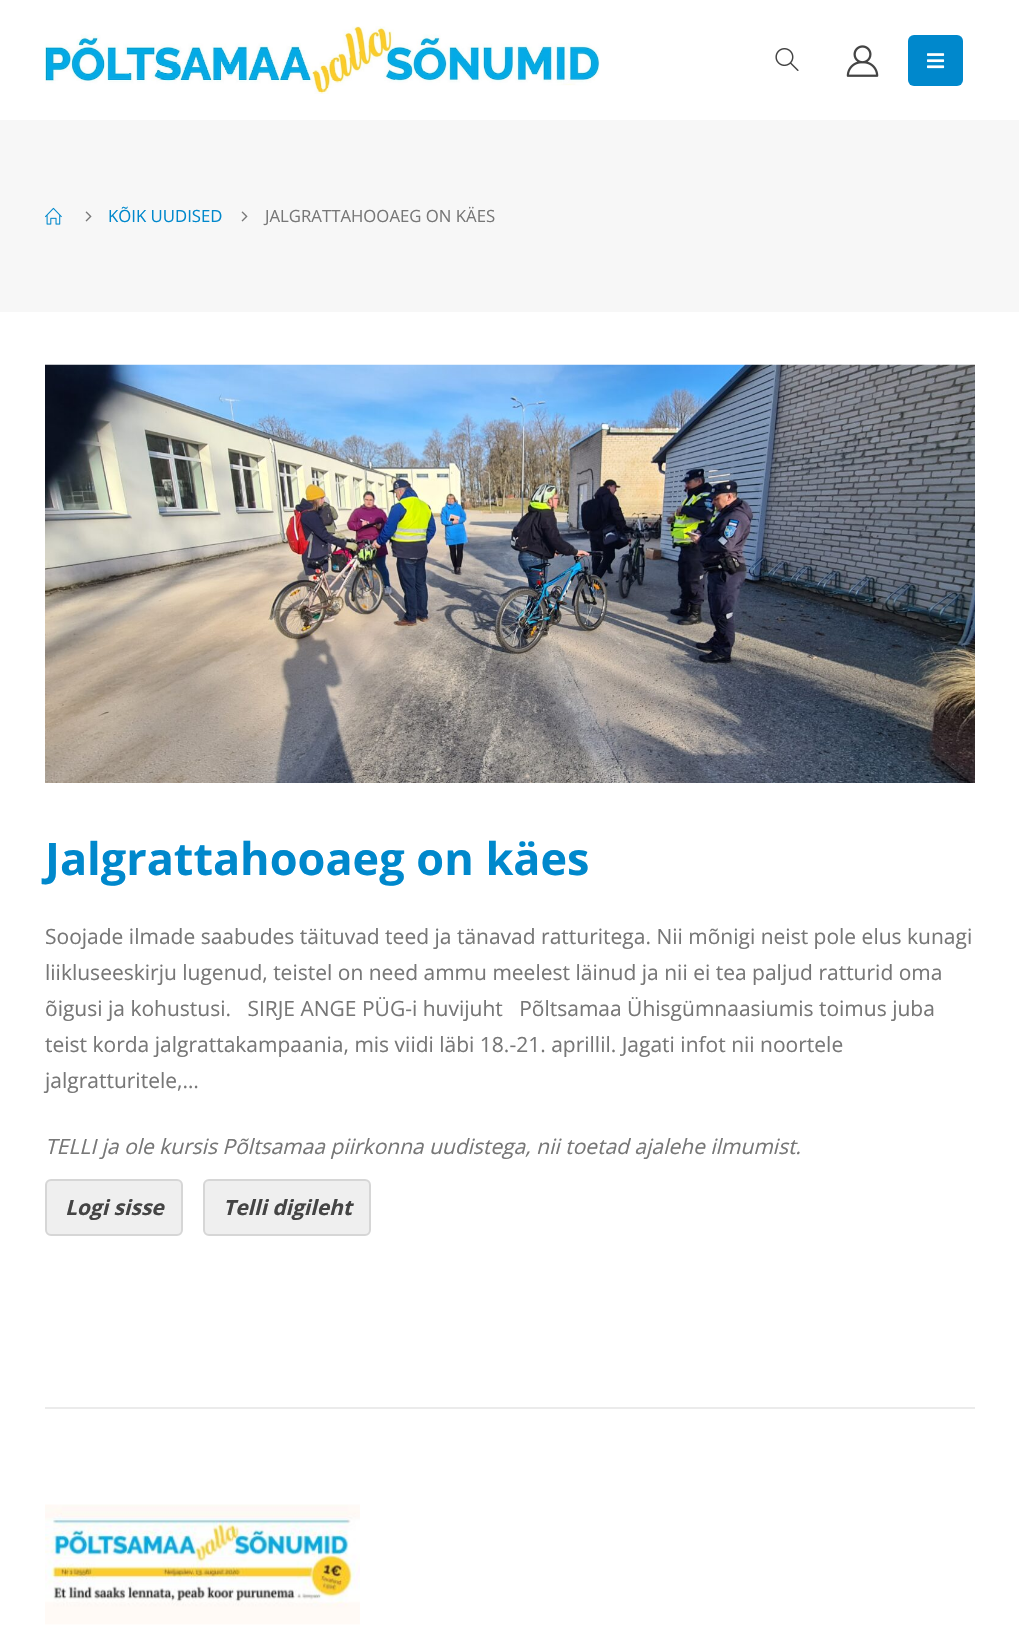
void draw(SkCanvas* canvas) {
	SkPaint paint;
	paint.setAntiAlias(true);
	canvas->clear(0xffffffff);
	canvas->drawImageRect(SkImages::DeferredFromEncodedData(SkData::MakeFromFileName("img1.png")), SkRect::MakeXYWH(45, 26, 555, 68), SkSamplingOptions());
	canvas->drawImageRect(SkImages::DeferredFromEncodedData(SkData::MakeFromFileName("img2.png")), SkRect::MakeXYWH(775, 48, 24, 23), SkSamplingOptions());
	canvas->drawImageRect(SkImages::DeferredFromEncodedData(SkData::MakeFromFileName("img3.png")), SkRect::MakeXYWH(846, 45, 33, 32), SkSamplingOptions());
	paint.setColor(0xff0088cc);
	canvas->drawRoundRect(SkRect::MakeXYWH(908, 35, 55, 51), 6, 6, paint);
	canvas->drawImageRect(SkImages::DeferredFromEncodedData(SkData::MakeFromFileName("img4.png")), SkRect::MakeXYWH(927, 53, 18, 16), SkSamplingOptions());
	paint.setColor(0xfff7f7f7);
	canvas->drawRect(SkRect::MakeXYWH(0, 120, 1019, 192), paint);
	canvas->drawImageRect(SkImages::DeferredFromEncodedData(SkData::MakeFromFileName("img5.png")), SkRect::MakeXYWH(45, 207, 17, 18), SkSamplingOptions());
	canvas->drawImageRect(SkImages::DeferredFromEncodedData(SkData::MakeFromFileName("img6.png")), SkRect::MakeXYWH(85, 211, 7, 11), SkSamplingOptions());
	SkFont f1(fontMgr->matchFamilyStyle("Open Sans", SkFontStyle::Normal()), 16.75);
	f1.setSubpixel(true);
	paint.setColor(0xff0088cc);
	canvas->drawString("KÕIK UUDISED", 108, 222, f1, paint);
	canvas->drawImageRect(SkImages::DeferredFromEncodedData(SkData::MakeFromFileName("img6.png")), SkRect::MakeXYWH(241, 211, 7, 11), SkSamplingOptions());
	paint.setColor(0xff777777);
	canvas->drawString("JALGRATTAHOOAEG ON KÄES", 265, 222, f1, paint);
	canvas->drawImageRect(SkImages::DeferredFromEncodedData(SkData::MakeFromFileName("img7.png")), SkRect::MakeXYWH(45, 364, 930, 419), SkSamplingOptions());
	SkFont f2(fontMgr->matchFamilyStyle("Open Sans", SkFontStyle::Bold()), 45);
	f2.setSubpixel(true);
	paint.setColor(0xff0088cc);
	canvas->drawString("Jalgrattahooaeg on käes", 45, 875, f2, paint);
	SkFont f3(fontMgr->matchFamilyStyle("Open Sans", SkFontStyle::Normal()), 21);
	f3.setSubpixel(true);
	paint.setColor(0xff777777);
	canvas->drawString("Soojade ilmade saabudes täituvad teed ja tänavad ratturitega. Nii mõnigi neist pole elus kunagi", 45, 944, f3, paint);
	canvas->drawString("liikluseeskirju lugenud, teistel on need ammu meelest läinud ja nii ei tea paljud ratturid oma", 45, 980, f3, paint);
	canvas->drawString("õigusi ja kohustusi.   SIRJE ANGE PÜG-i huvijuht   Põltsamaa Ühisgümnaasiumis toimus juba", 45, 1016, f3, paint);
	canvas->drawString("teist korda jalgrattakampaania, mis viidi läbi 18.-21. aprillil. Jagati infot nii noortele", 45, 1052, f3, paint);
	canvas->drawString("jalgratturitele,…", 45, 1088, f3, paint);
	SkFont f4(fontMgr->matchFamilyStyle("Open Sans", SkFontStyle::Italic()), 21);
	f4.setSubpixel(true);
	canvas->drawString("TELLI ja ole kursis Põltsamaa piirkonna uudistega, nii toetad ajalehe ilmumist.", 45, 1154, f4, paint);
	paint.setColor(0xffefefef);
	canvas->drawRoundRect(SkRect::MakeXYWH(46, 1180, 136, 55), 5, 5, paint);
	paint.setStroke(true);
	paint.setStrokeWidth(2);
	paint.setColor(0xffd6d6d6);
	canvas->drawRoundRect(SkRect::MakeXYWH(46, 1180, 136, 55), 5, 5, paint);
	SkFont f5(fontMgr->matchFamilyStyle("Open Sans", SkFontStyle::BoldItalic()), 21);
	f5.setSubpixel(true);
	paint.setStroke(false);
	paint.setColor(0xff444444);
	canvas->drawString("Logi sisse", 65, 1215, f5, paint);
	paint.setColor(0xffefefef);
	canvas->drawRoundRect(SkRect::MakeXYWH(204, 1180, 166, 55), 5, 5, paint);
	paint.setStroke(true);
	paint.setColor(0xffd6d6d6);
	canvas->drawRoundRect(SkRect::MakeXYWH(204, 1180, 166, 55), 5, 5, paint);
	paint.setStroke(false);
	paint.setColor(0xff444444);
	canvas->drawString("Telli digileht", 223, 1215, f5, paint);
	paint.setColor(0xffebebeb);
	canvas->drawRect(SkRect::MakeXYWH(45, 1407, 930, 2), paint);
	canvas->drawImageRect(SkImages::DeferredFromEncodedData(SkData::MakeFromFileName("img8.png")), SkRect::MakeXYWH(45, 1504, 315, 121), SkSamplingOptions());
}
